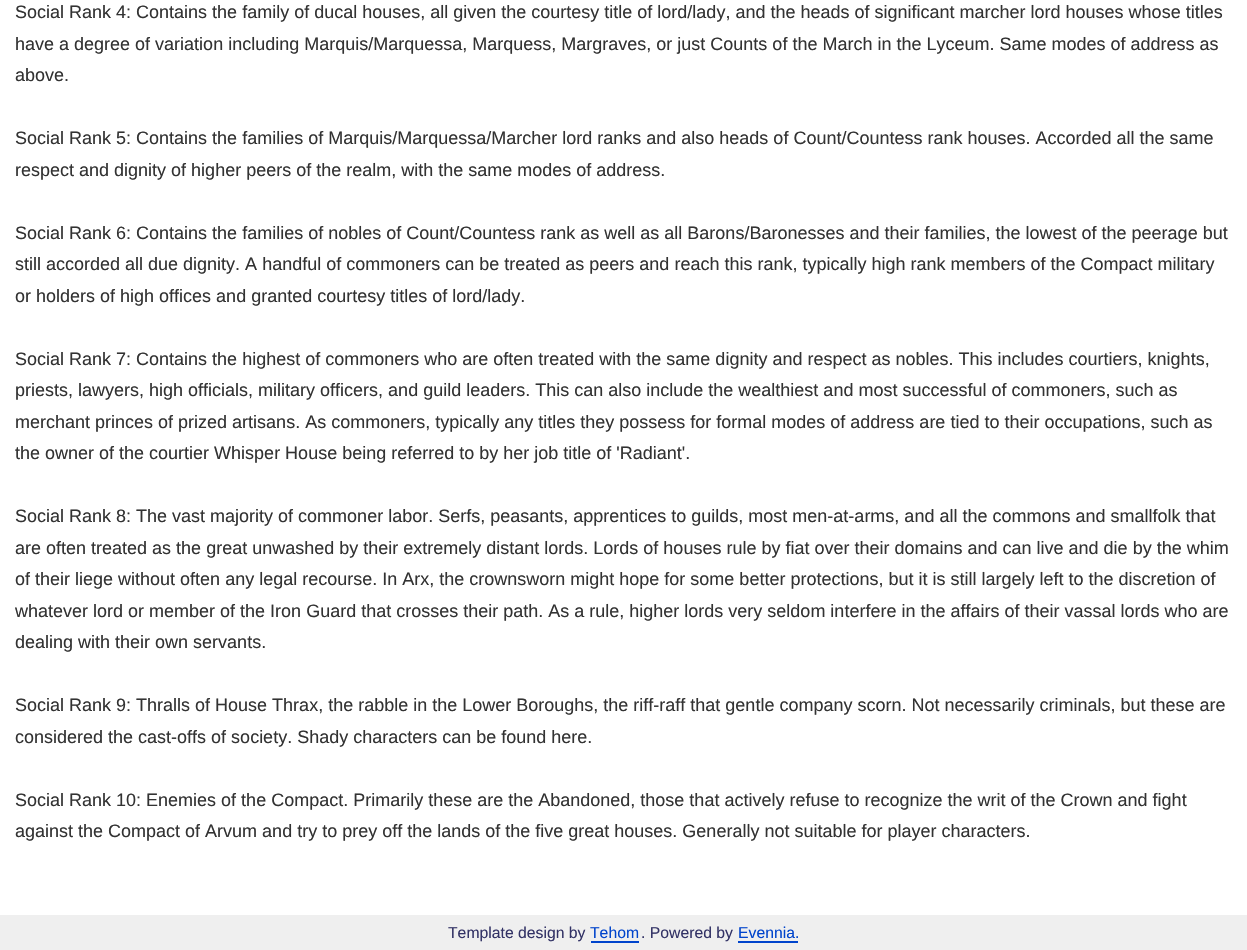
void draw(SkCanvas* canvas) {
	SkPaint paint;
	paint.setAntiAlias(true);
	canvas->clear(0xffffffff);
	SkFont f1(fontMgr->matchFamilyStyle("Liberation Sans", SkFontStyle::Normal()), 18);
	f1.setSubpixel(true);
	paint.setColor(0xff333333);
	canvas->drawString("Social Rank 4: Contains the family of ducal houses, all given the courtesy title of lord/lady, and the heads of significant marcher lord houses whose titles", 15, 18, f1, paint);
	canvas->drawString("have a degree of variation including Marquis/Marquessa, Marquess, Margraves, or just Counts of the March in the Lyceum. Same modes of address as", 15, 50, f1, paint);
	canvas->drawString("above.", 15, 81, f1, paint);
	canvas->drawString("Social Rank 5: Contains the families of Marquis/Marquessa/Marcher lord ranks and also heads of Count/Countess rank houses. Accorded all the same", 15, 144, f1, paint);
	canvas->drawString("respect and dignity of higher peers of the realm, with the same modes of address.", 15, 176, f1, paint);
	canvas->drawString("Social Rank 6: Contains the families of nobles of Count/Countess rank as well as all Barons/Baronesses and their families, the lowest of the peerage but", 15, 239, f1, paint);
	canvas->drawString("still accorded all due dignity. A handful of commoners can be treated as peers and reach this rank, typically high rank members of the Compact military", 15, 270, f1, paint);
	canvas->drawString("or holders of high offices and granted courtesy titles of lord/lady.", 15, 302, f1, paint);
	canvas->drawString("Social Rank 7: Contains the highest of commoners who are often treated with the same dignity and respect as nobles. This includes courtiers, knights,", 15, 365, f1, paint);
	canvas->drawString("priests, lawyers, high officials, military officers, and guild leaders. This can also include the wealthiest and most successful of commoners, such as", 15, 396, f1, paint);
	canvas->drawString("merchant princes of prized artisans. As commoners, typically any titles they possess for formal modes of address are tied to their occupations, such as", 15, 428, f1, paint);
	canvas->drawString("the owner of the courtier Whisper House being referred to by her job title of 'Radiant'.", 15, 459, f1, paint);
	canvas->drawString("Social Rank 8: The vast majority of commoner labor. Serfs, peasants, apprentices to guilds, most men-at-arms, and all the commons and smallfolk that", 15, 522, f1, paint);
	canvas->drawString("are often treated as the great unwashed by their extremely distant lords. Lords of houses rule by fiat over their domains and can live and die by the whim", 15, 554, f1, paint);
	canvas->drawString("of their liege without often any legal recourse. In Arx, the crownsworn might hope for some better protections, but it is still largely left to the discretion of", 15, 585, f1, paint);
	canvas->drawString("whatever lord or member of the Iron Guard that crosses their path. As a rule, higher lords very seldom interfere in the affairs of their vassal lords who are", 15, 617, f1, paint);
	canvas->drawString("dealing with their own servants.", 15, 648, f1, paint);
	canvas->drawString("Social Rank 9: Thralls of House Thrax, the rabble in the Lower Boroughs, the riff-raff that gentle company scorn. Not necessarily criminals, but these are", 15, 711, f1, paint);
	canvas->drawString("considered the cast-offs of society. Shady characters can be found here.", 15, 743, f1, paint);
	canvas->drawString("Social Rank 10: Enemies of the Compact. Primarily these are the Abandoned, those that actively refuse to recognize the writ of the Crown and fight", 15, 806, f1, paint);
	canvas->drawString("against the Compact of Arvum and try to prey off the lands of the five great houses. Generally not suitable for player characters.", 15, 837, f1, paint);
	paint.setColor(0xffefefef);
	canvas->drawRect(SkRect::MakeXYWH(0, 915, 1247, 35), paint);
	SkFont f2(fontMgr->matchFamilyStyle("Liberation Sans", SkFontStyle::Normal()), 15.75);
	f2.setSubpixel(true);
	paint.setColor(0xff333366);
	canvas->drawString("Template design by", 448, 938, f2, paint);
	paint.setColor(0xff0044cc);
	canvas->drawString("Tehom", 590, 938, f2, paint);
	paint.setColor(0xff333366);
	canvas->drawString(". Powered by", 641, 938, f2, paint);
	paint.setColor(0xff0044cc);
	canvas->drawRect(SkRect::MakeXYWH(591, 941, 48, 2), paint);
	canvas->drawString("Evennia.", 738, 938, f2, paint);
	canvas->drawRect(SkRect::MakeXYWH(738, 941, 60, 2), paint);
}
